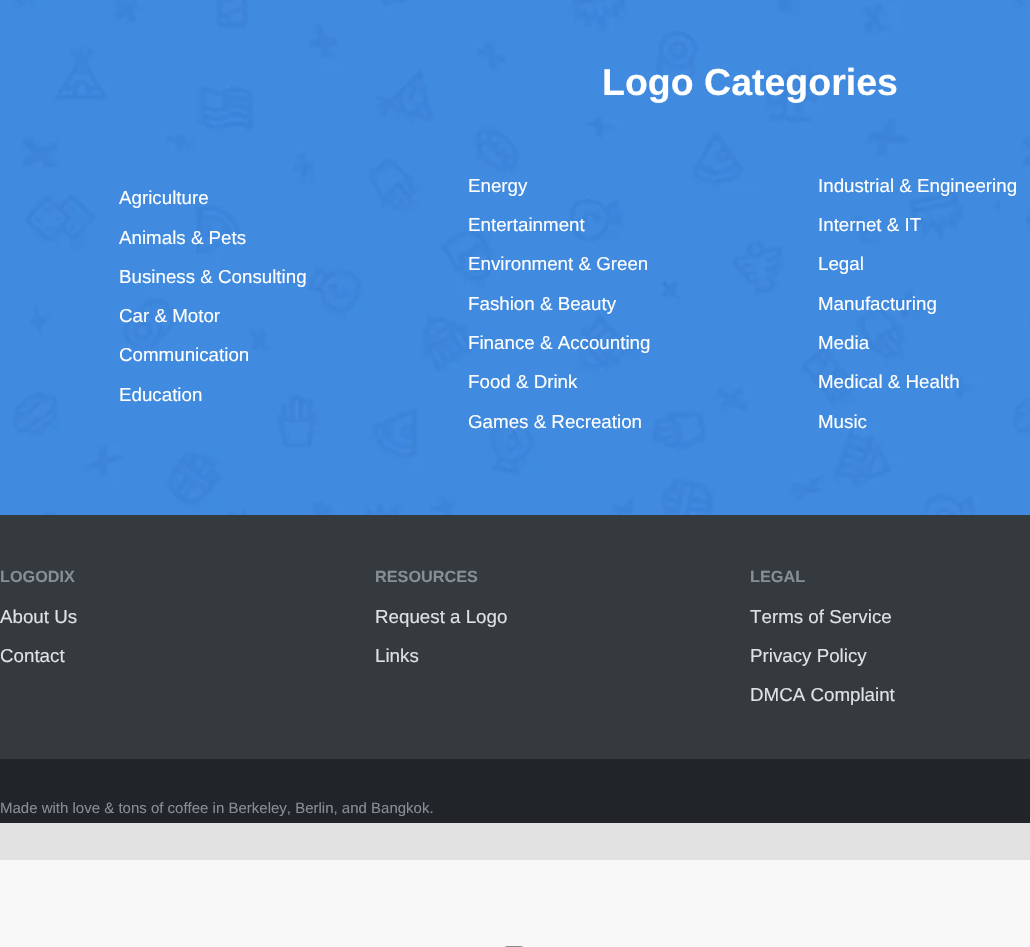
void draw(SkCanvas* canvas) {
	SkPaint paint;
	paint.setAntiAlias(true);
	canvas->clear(0xfff8f8f8);
	paint.setColor(0xff408bdf);
	canvas->drawRect(SkRect::MakeXYWH(0, 0, 1030, 515), paint);
	canvas->drawImageRect(SkImages::DeferredFromEncodedData(SkData::MakeFromFileName("img1.png")), SkRect::MakeXYWH(13, 0, 1017, 515), SkSamplingOptions());
	SkFont f1(fontMgr->matchFamilyStyle("Liberation Sans", SkFontStyle::Bold()), 37.5);
	f1.setSubpixel(true);
	paint.setColor(0xffffffff);
	canvas->drawString("Logo Categories", 602, 95, f1, paint);
	SkFont f2(fontMgr->matchFamilyStyle("Liberation Sans", SkFontStyle::Normal()), 18.75);
	f2.setSubpixel(true);
	canvas->drawString("Energy", 468, 192, f2, paint);
	canvas->drawString("Industrial & Engineering", 818, 192, f2, paint);
	canvas->drawString("Agriculture", 119, 204, f2, paint);
	canvas->drawString("Entertainment", 468, 231, f2, paint);
	canvas->drawString("Internet & IT", 818, 231, f2, paint);
	canvas->drawString("Animals & Pets", 119, 244, f2, paint);
	canvas->drawString("Environment & Green", 468, 270, f2, paint);
	canvas->drawString("Legal", 818, 270, f2, paint);
	canvas->drawString("Business & Consulting", 119, 283, f2, paint);
	canvas->drawString("Fashion & Beauty", 468, 310, f2, paint);
	canvas->drawString("Manufacturing", 818, 310, f2, paint);
	canvas->drawString("Car & Motor", 119, 322, f2, paint);
	canvas->drawString("Finance & Accounting", 468, 349, f2, paint);
	canvas->drawString("Media", 818, 349, f2, paint);
	canvas->drawString("Communication", 119, 361, f2, paint);
	canvas->drawString("Food & Drink", 468, 388, f2, paint);
	canvas->drawString("Medical & Health", 818, 388, f2, paint);
	canvas->drawString("Education", 119, 401, f2, paint);
	canvas->drawString("Games & Recreation", 468, 428, f2, paint);
	canvas->drawString("Music", 818, 428, f2, paint);
	paint.setColor(0xff353a3f);
	canvas->drawRect(SkRect::MakeXYWH(0, 515, 1030, 244), paint);
	SkFont f3(fontMgr->matchFamilyStyle("Liberation Sans", SkFontStyle::Bold()), 16.25);
	f3.setSubpixel(true);
	paint.setColor(0xff868e96);
	canvas->drawString("LOGODIX", 0, 582, f3, paint);
	paint.setColor(0xffdee2e6);
	canvas->drawString("About Us", 0, 623, f2, paint);
	canvas->drawString("Contact", 0, 662, f2, paint);
	paint.setColor(0xff868e96);
	canvas->drawString("RESOURCES", 375, 582, f3, paint);
	paint.setColor(0xffdee2e6);
	canvas->drawString("Request a Logo", 375, 623, f2, paint);
	canvas->drawString("Links", 375, 662, f2, paint);
	paint.setColor(0xff868e96);
	canvas->drawString("LEGAL", 750, 582, f3, paint);
	paint.setColor(0xffdee2e6);
	canvas->drawString("Terms of Service", 750, 623, f2, paint);
	canvas->drawString("Privacy Policy", 750, 662, f2, paint);
	canvas->drawString("DMCA Complaint", 750, 701, f2, paint);
	paint.setColor(0xff212428);
	canvas->drawRect(SkRect::MakeXYWH(0, 759, 1030, 64), paint);
	paint.setColor(0xffe2e2e2);
	canvas->drawRect(SkRect::MakeXYWH(0, 823, 1030, 37), paint);
	SkFont f4(fontMgr->matchFamilyStyle("Liberation Sans", SkFontStyle::Normal()), 15);
	f4.setSubpixel(true);
	paint.setColor(0xff868e96);
	canvas->drawString("Made with love & tons of coffee in Berkeley, Berlin, and Bangkok.", 0, 813, f4, paint);
	paint.setStroke(true);
	paint.setStrokeWidth(1);
	paint.setColor(0xff888888);
	canvas->drawRoundRect(SkRect::MakeXYWH(500.5, 946.5, 27, 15), 13.5, 13.5, paint);
}
